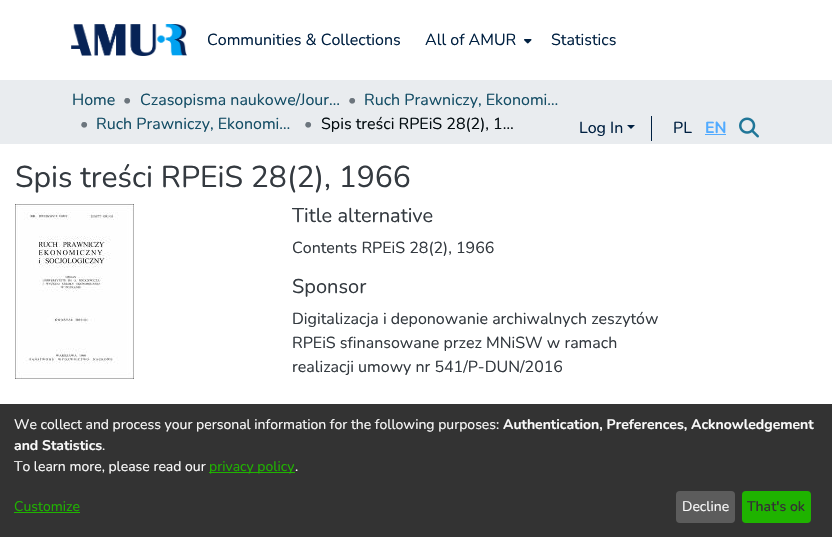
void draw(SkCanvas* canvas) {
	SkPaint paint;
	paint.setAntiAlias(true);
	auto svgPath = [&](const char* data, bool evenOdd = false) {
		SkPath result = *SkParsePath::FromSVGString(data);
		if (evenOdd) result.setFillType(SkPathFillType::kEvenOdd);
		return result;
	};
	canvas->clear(0xffffffff);
	canvas->drawImageRect(SkImages::DeferredFromEncodedData(SkData::MakeFromFileName("img1.png")), SkRect::MakeXYWH(71, 24, 116, 32), SkSamplingOptions());
	SkFont f1(fontMgr->matchFamilyStyle("Nunito", SkFontStyle::Normal()), 16);
	f1.setSubpixel(true);
	paint.setColor(0xff002041);
	canvas->drawString("Communities & Collections", 207, 45, f1, paint);
	canvas->drawString("All of AMUR", 425, 45, f1, paint);
	canvas->drawImageRect(SkImages::DeferredFromEncodedData(SkData::MakeFromFileName("img2.png")), SkRect::MakeXYWH(524, 39, 8, 5), SkSamplingOptions());
	canvas->drawString("Statistics", 551, 45, f1, paint);
	paint.setColor(0xffe9ecef);
	canvas->drawRect(SkRect::MakeXYWH(0, 80, 832, 64), paint);
	paint.setColor(0xff002041);
	canvas->drawString("Log In", 579, 133, f1, paint);
	canvas->drawPath(svgPath("M627 125H635L631 129Z"), paint);
	canvas->drawRect(SkRect::MakeXYWH(651, 116, 1, 25), paint);
	canvas->drawString("PL", 673, 133, f1, paint);
	SkFont f2(fontMgr->matchFamilyStyle("Nunito", SkFontStyle::Bold()), 16);
	f2.setSubpixel(true);
	paint.setColor(0xff52abff);
	canvas->drawString("EN", 705, 133, f2, paint);
	canvas->drawRect(SkRect::MakeXYWH(705, 134, 21, 1), paint);
	canvas->drawImageRect(SkImages::DeferredFromEncodedData(SkData::MakeFromFileName("img3.png")), SkRect::MakeXYWH(739, 117, 20, 21), SkSamplingOptions());
	paint.setColor(0xff154e66);
	canvas->drawString("Home", 72, 105, f1, paint);
	paint.setColor(0xff6c757d);
	canvas->drawString("•", 123, 105, f1, paint);
	paint.setColor(0xff154e66);
	canvas->drawString("Czasopisma naukowe/Jour…", 140, 105, f1, paint);
	paint.setColor(0xff6c757d);
	canvas->drawString("•", 348, 105, f1, paint);
	paint.setColor(0xff154e66);
	canvas->drawString("Ruch Prawniczy, Ekonomi…", 364, 105, f1, paint);
	paint.setColor(0xff6c757d);
	canvas->drawString("•", 80, 129, f1, paint);
	paint.setColor(0xff154e66);
	canvas->drawString("Ruch Prawniczy, Ekonomi…", 96, 129, f1, paint);
	paint.setColor(0xff6c757d);
	canvas->drawString("•", 304, 129, f1, paint);
	paint.setColor(0xff040d11);
	canvas->drawString("Spis treści RPEiS 28(2), 1…", 321, 129, f1, paint);
	SkFont f3(fontMgr->matchFamilyStyle("Nunito", SkFontStyle::Normal()), 30.1);
	f3.setSubpixel(true);
	paint.setColor(0xff343a40);
	canvas->drawString("Spis treści RPEiS 28(2), 1966", 15, 187, f3, paint);
	canvas->drawImageRect(SkImages::DeferredFromEncodedData(SkData::MakeFromFileName("img4.png")), SkRect::MakeXYWH(15, 204, 119, 175), SkSamplingOptions());
	SkFont f4(fontMgr->matchFamilyStyle("Nunito", SkFontStyle::Normal()), 20);
	f4.setSubpixel(true);
	canvas->drawString("Title alternative", 292, 222, f4, paint);
	canvas->drawString("Contents RPEiS 28(2), 1966", 292, 253, f1, paint);
	canvas->drawString("Sponsor", 292, 293, f4, paint);
	canvas->drawString("Digitalizacja i deponowanie archiwalnych zeszytów", 292, 324, f1, paint);
	canvas->drawString("RPEiS sfinansowane przez MNiSW w ramach", 292, 348, f1, paint);
	canvas->drawString("realizacji umowy nr 541/P-DUN/2016", 292, 372, f1, paint);
	paint.setColor(0xff333333);
	canvas->drawRect(SkRect::MakeXYWH(0, 404, 832, 133), paint);
	SkFont f5(fontMgr->matchFamilyStyle("Nunito", SkFontStyle::Normal()), 14);
	f5.setSubpixel(true);
	paint.setColor(0xfffafafa);
	canvas->drawString("We collect and process your personal information for the following purposes:", 14, 429, f5, paint);
	SkFont f6(fontMgr->matchFamilyStyle("Nunito", SkFontStyle::Bold()), 14);
	f6.setSubpixel(true);
	canvas->drawString("Authentication, Preferences, Acknowledgement", 503, 429, f6, paint);
	canvas->drawString("and Statistics", 14, 450, f6, paint);
	canvas->drawString(".", 102, 450, f5, paint);
	canvas->drawString("To learn more, please read our", 14, 471, f5, paint);
	paint.setColor(0xff1fb300);
	canvas->drawRect(SkRect::MakeXYWH(209, 472, 86, 1), paint);
	canvas->drawString("privacy policy", 209, 471, f5, paint);
	paint.setColor(0xfffafafa);
	canvas->drawString(".", 295, 471, f5, paint);
	paint.setColor(0xff1fb300);
	canvas->drawString("Customize", 14, 511, f5, paint);
	canvas->drawRect(SkRect::MakeXYWH(14, 512, 66, 1), paint);
	paint.setColor(0xff5c5c5c);
	canvas->drawRoundRect(SkRect::MakeXYWH(676, 491, 59, 32), 4, 4, paint);
	paint.setColor(0xfffafafa);
	canvas->drawString("Decline", 682, 511, f5, paint);
	paint.setColor(0xff1fb300);
	canvas->drawRoundRect(SkRect::MakeXYWH(742, 491, 69, 32), 4, 4, paint);
	SkFont f7(fontMgr->matchFamilyStyle("Nunito", SkFontStyle(600, SkFontStyle::kNormal_Width, SkFontStyle::kUpright_Slant)), 14);
	f7.setSubpixel(true);
	paint.setColor(0xff333333);
	canvas->drawString("That's ok", 747, 511, f7, paint);
}
